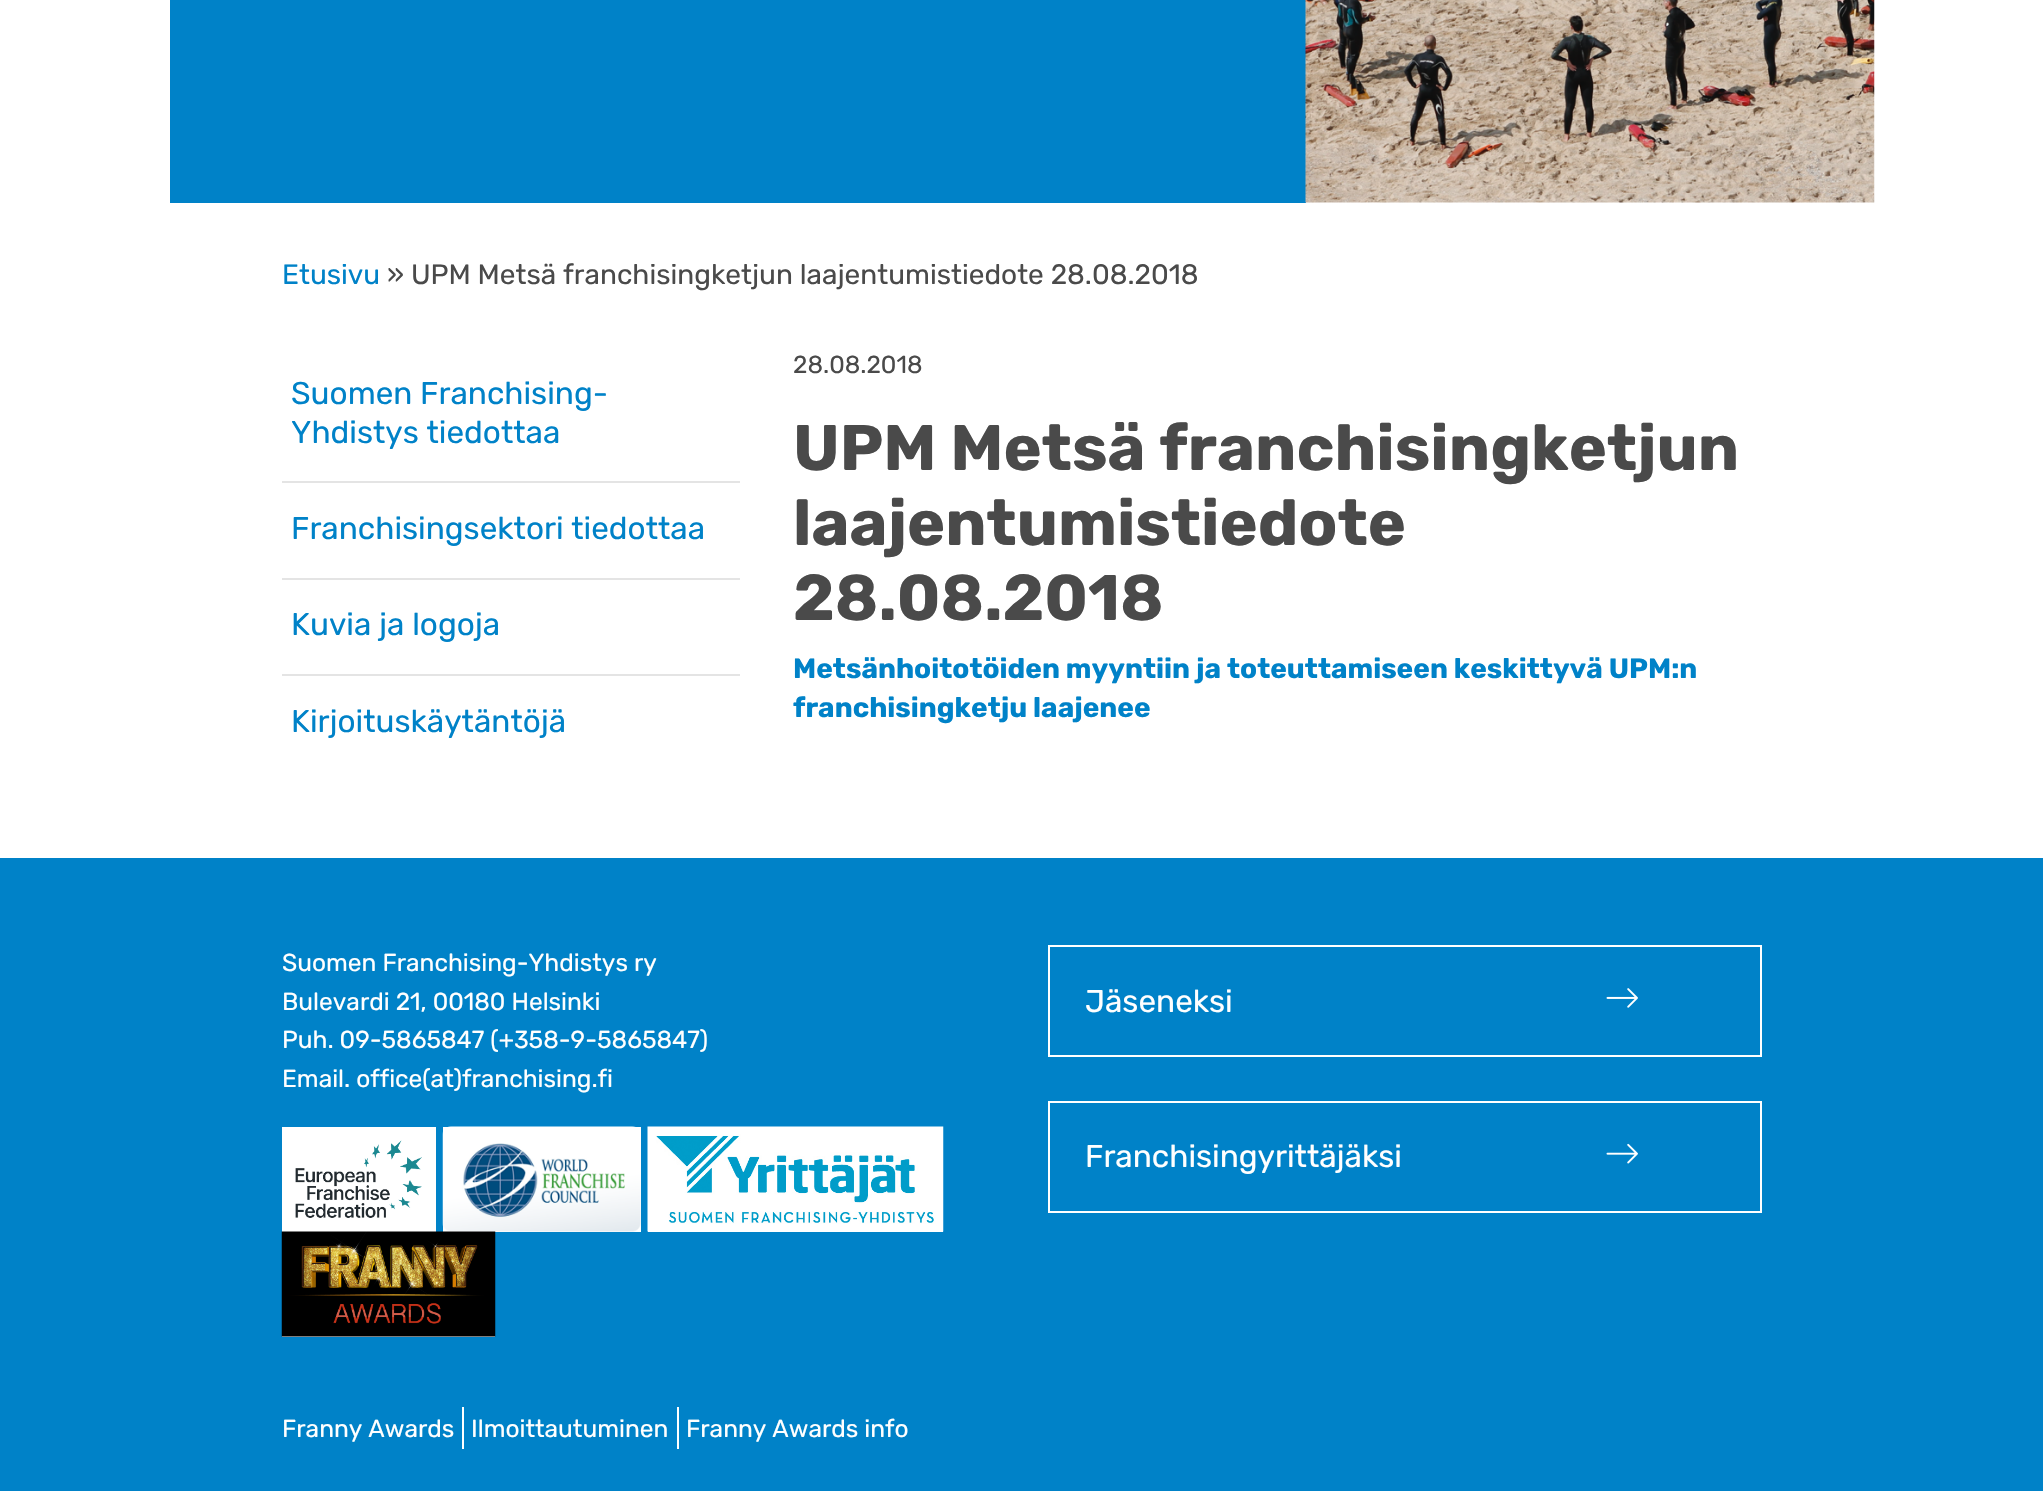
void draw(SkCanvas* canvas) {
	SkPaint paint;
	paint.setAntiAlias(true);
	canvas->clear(0xffffffff);
	paint.setColor(0xff0082c8);
	canvas->drawRect(SkRect::MakeXYWH(170, 0, 1136, 203), paint);
	canvas->drawImageRect(SkImages::DeferredFromEncodedData(SkData::MakeFromFileName("img1.png")), SkRect::MakeXYWH(1305, 0, 570, 203), SkSamplingOptions());
	SkFont f1(fontMgr->matchFamilyStyle("Rubik", SkFontStyle::Normal()), 28);
	f1.setSubpixel(true);
	canvas->drawString("Etusivu", 282, 284, f1, paint);
	paint.setColor(0xff4a4a4a);
	canvas->drawString("» UPM Metsä franchisingketjun laajentumistiedote 28.08.2018", 387, 284, f1, paint);
	paint.setColor(0xffe4e4e4);
	canvas->drawRect(SkRect::MakeXYWH(282, 481, 458, 2), paint);
	SkFont f2(fontMgr->matchFamilyStyle("Rubik", SkFontStyle::Normal()), 31.5);
	f2.setSubpixel(true);
	paint.setColor(0xff0082c8);
	canvas->drawString("Suomen Franchising-", 291, 404, f2, paint);
	canvas->drawString("Yhdistys tiedottaa", 291, 443, f2, paint);
	paint.setColor(0xffe4e4e4);
	canvas->drawRect(SkRect::MakeXYWH(282, 578, 458, 2), paint);
	paint.setColor(0xff0082c8);
	canvas->drawString("Franchisingsektori tiedottaa", 291, 539, f2, paint);
	paint.setColor(0xffe4e4e4);
	canvas->drawRect(SkRect::MakeXYWH(282, 674, 458, 2), paint);
	paint.setColor(0xff0082c8);
	canvas->drawString("Kuvia ja logoja", 291, 635, f2, paint);
	canvas->drawString("Kirjoituskäytäntöjä", 291, 732, f2, paint);
	SkFont f3(fontMgr->matchFamilyStyle("Rubik", SkFontStyle::Normal()), 24.5);
	f3.setSubpixel(true);
	paint.setColor(0xff4a4a4a);
	canvas->drawString("28.08.2018", 793, 373, f3, paint);
	SkFont f4(fontMgr->matchFamilyStyle("Rubik", SkFontStyle::Bold()), 64.4);
	f4.setSubpixel(true);
	canvas->drawString("UPM Metsä franchisingketjun", 793, 470, f4, paint);
	canvas->drawString("laajentumistiedote", 793, 545, f4, paint);
	canvas->drawString("28.08.2018", 793, 620, f4, paint);
	SkFont f5(fontMgr->matchFamilyStyle("Rubik", SkFontStyle::Bold()), 28);
	f5.setSubpixel(true);
	paint.setColor(0xff0082c8);
	canvas->drawString("Metsänhoitotöiden myyntiin ja toteuttamiseen keskittyvä UPM:n", 793, 678, f5, paint);
	canvas->drawString("franchisingketju laajenee", 793, 717, f5, paint);
	canvas->drawRect(SkRect::MakeXYWH(0, 858, 2043, 633), paint);
	paint.setColor(0xffffffff);
	canvas->drawString("Suomen Franchising-Yhdistys ry", 282, 971, f3, paint);
	canvas->drawString("Bulevardi 21, 00180 Helsinki", 282, 1010, f3, paint);
	canvas->drawString("Puh. 09-5865847 (+358-9-5865847)", 282, 1048, f3, paint);
	canvas->drawString("Email. office(at)franchising.fi", 282, 1087, f3, paint);
	canvas->drawRect(SkRect::MakeXYWH(282, 1127, 154, 105), paint);
	canvas->drawImageRect(SkImages::DeferredFromEncodedData(SkData::MakeFromFileName("img2.png")), SkRect::MakeXYWH(295, 1140, 127, 78), SkSamplingOptions());
	canvas->drawRect(SkRect::MakeXYWH(443, 1127, 198, 105), paint);
	canvas->drawImageRect(SkImages::DeferredFromEncodedData(SkData::MakeFromFileName("img3.png")), SkRect::MakeXYWH(442, 1126, 199, 106), SkSamplingOptions());
	canvas->drawRect(SkRect::MakeXYWH(648, 1231, 295, 1), paint);
	canvas->drawImageRect(SkImages::DeferredFromEncodedData(SkData::MakeFromFileName("img4.png")), SkRect::MakeXYWH(647, 1126, 297, 106), SkSamplingOptions());
	canvas->drawRect(SkRect::MakeXYWH(282, 1336, 213, 1), paint);
	canvas->drawImageRect(SkImages::DeferredFromEncodedData(SkData::MakeFromFileName("img5.png")), SkRect::MakeXYWH(281, 1231, 215, 106), SkSamplingOptions());
	canvas->drawRect(SkRect::MakeXYWH(462, 1407, 2, 42), paint);
	canvas->drawString("Franny Awards", 282, 1437, f3, paint);
	canvas->drawRect(SkRect::MakeXYWH(677, 1407, 2, 42), paint);
	canvas->drawString("Ilmoittautuminen", 471, 1437, f3, paint);
	canvas->drawString("Franny Awards info", 686, 1437, f3, paint);
	paint.setStroke(true);
	paint.setStrokeWidth(2);
	canvas->drawRect(SkRect::MakeXYWH(1049, 946, 712, 110), paint);
	paint.setStroke(false);
	canvas->drawString("Jäseneksi", 1085, 1012, f2, paint);
	canvas->drawImageRect(SkImages::DeferredFromEncodedData(SkData::MakeFromFileName("img6.png")), SkRect::MakeXYWH(1606, 988, 32, 20), SkSamplingOptions());
	paint.setStroke(true);
	canvas->drawRect(SkRect::MakeXYWH(1049, 1102, 712, 110), paint);
	paint.setStroke(false);
	canvas->drawString("Franchisingyrittäjäksi", 1085, 1167, f2, paint);
	canvas->drawImageRect(SkImages::DeferredFromEncodedData(SkData::MakeFromFileName("img7.png")), SkRect::MakeXYWH(1606, 1143, 32, 21), SkSamplingOptions());
}
